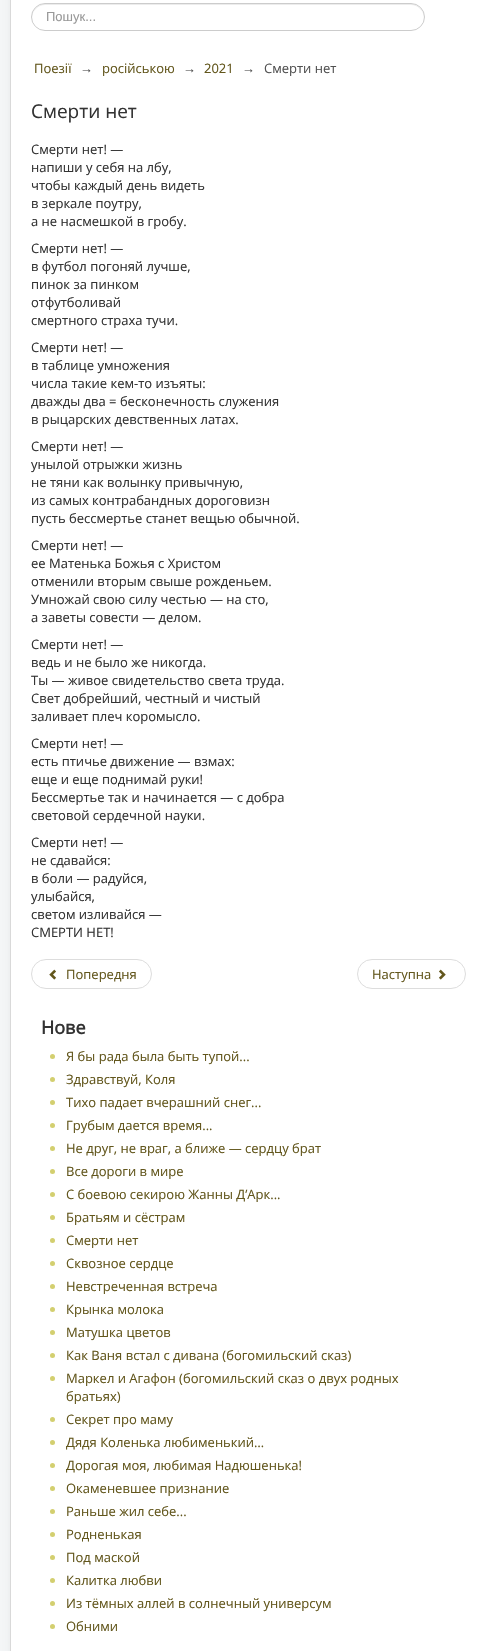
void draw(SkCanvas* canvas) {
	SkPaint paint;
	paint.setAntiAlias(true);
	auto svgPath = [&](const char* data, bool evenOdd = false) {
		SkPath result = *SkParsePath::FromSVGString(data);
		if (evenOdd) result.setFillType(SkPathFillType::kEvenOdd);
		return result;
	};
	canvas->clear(0xfff4f6f7);
	paint.setColor(0x0d000000);
	paint.setMaskFilter(SkMaskFilter::MakeBlur(kNormal_SkBlurStyle, 3));
	canvas->drawRoundRect(SkRect::MakeXYWH(10, -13, 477, 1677), 4, 4, paint);
	paint.setMaskFilter(nullptr);
	paint.setColor(0xffffffff);
	canvas->drawRect(SkRect::MakeXYWH(10.5, -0.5, 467, 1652), paint);
	paint.setStroke(true);
	paint.setStrokeWidth(1);
	paint.setColor(0xffd9d9d9);
	canvas->drawRect(SkRect::MakeXYWH(10.5, -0.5, 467, 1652), paint);
	paint.setStroke(false);
	paint.setColor(0xffececec);
	canvas->drawPath(svgPath("M45 5H411C418 5 424 11 424 18V17C424 10 418 4 411 4H45C38 4 32 10 32 17V18C32 11 38 5 45 5Z"), paint);
	paint.setStroke(true);
	paint.setColor(0xffcccccc);
	canvas->drawRoundRect(SkRect::MakeXYWH(31.5, 3.5, 393, 27), 13.5, 13.5, paint);
	SkFont f1(fontMgr->matchFamilyStyle("Liberation Sans", SkFontStyle::Normal()), 13);
	f1.setSubpixel(true);
	paint.setStroke(false);
	paint.setColor(0xff999999);
	canvas->drawString("Пошук...", 46, 21, f1, paint);
	SkFont f2(fontMgr->matchFamilyStyle("Open Sans", SkFontStyle::Normal()), 13);
	f2.setSubpixel(true);
	paint.setColor(0xff62561c);
	canvas->drawString("Поезії", 34, 73, f2, paint);
	paint.setColor(0xff515151);
	canvas->drawString("→", 80, 73, f1, paint);
	paint.setColor(0xff62561c);
	canvas->drawString("російською", 102, 73, f2, paint);
	paint.setColor(0xff515151);
	canvas->drawString("→", 183, 73, f1, paint);
	paint.setColor(0xff62561c);
	canvas->drawString("2021", 204, 73, f2, paint);
	paint.setColor(0xff515151);
	canvas->drawString("→", 242, 73, f1, paint);
	canvas->drawString("Смерти нет", 264, 73, f2, paint);
	SkFont f3(fontMgr->matchFamilyStyle("Open Sans", SkFontStyle::Normal()), 19);
	f3.setSubpixel(true);
	paint.setColor(0xff333333);
	canvas->drawString("Смерти нет", 31, 118, f3, paint);
	canvas->drawString("Смерти нет! —", 31, 154, f2, paint);
	canvas->drawString("напиши у себя на лбу,", 31, 172, f2, paint);
	canvas->drawString("чтобы каждый день видеть", 31, 190, f2, paint);
	canvas->drawString("в зеркале поутру,", 31, 208, f2, paint);
	canvas->drawString("а не насмешкой в гробу.", 31, 226, f2, paint);
	canvas->drawString("Смерти нет! —", 31, 253, f2, paint);
	canvas->drawString("в футбол погоняй лучше,", 31, 271, f2, paint);
	canvas->drawString("пинок за пинком", 31, 289, f2, paint);
	canvas->drawString("отфутболивай", 31, 307, f2, paint);
	canvas->drawString("смертного страха тучи.", 31, 325, f2, paint);
	canvas->drawString("Смерти нет! —", 31, 352, f2, paint);
	canvas->drawString("в таблице умножения", 31, 370, f2, paint);
	canvas->drawString("числа такие кем-то изъяты:", 31, 388, f2, paint);
	canvas->drawString("дважды два = бесконечность служения", 31, 406, f2, paint);
	canvas->drawString("в рыцарских девственных латах.", 31, 424, f2, paint);
	canvas->drawString("Смерти нет! —", 31, 451, f2, paint);
	canvas->drawString("унылой отрыжки жизнь", 31, 469, f2, paint);
	canvas->drawString("не тяни как волынку привычную,", 31, 487, f2, paint);
	canvas->drawString("из самых контрабандных дороговизн", 31, 505, f2, paint);
	canvas->drawString("пусть бессмертье станет вещью обычной.", 31, 523, f2, paint);
	canvas->drawString("Смерти нет! —", 31, 550, f2, paint);
	canvas->drawString("ее Матенька Божья с Христом", 31, 568, f2, paint);
	canvas->drawString("отменили вторым свыше рожденьем.", 31, 586, f2, paint);
	canvas->drawString("Умножай свою силу честью — на сто,", 31, 604, f2, paint);
	canvas->drawString("а заветы совести — делом.", 31, 622, f2, paint);
	canvas->drawString("Смерти нет! —", 31, 649, f2, paint);
	canvas->drawString("ведь и не было же никогда.", 31, 667, f2, paint);
	canvas->drawString("Ты — живое свидетельство света труда.", 31, 685, f2, paint);
	canvas->drawString("Свет добрейший, честный и чистый", 31, 703, f2, paint);
	canvas->drawString("заливает плеч коромысло.", 31, 721, f2, paint);
	canvas->drawString("Смерти нет! —", 31, 748, f2, paint);
	canvas->drawString("есть птичье движение — взмах:", 31, 766, f2, paint);
	canvas->drawString("еще и еще поднимай руки!", 31, 784, f2, paint);
	canvas->drawString("Бессмертье так и начинается — с добра", 31, 802, f2, paint);
	canvas->drawString("световой сердечной науки.", 31, 820, f2, paint);
	canvas->drawString("Смерти нет! —", 31, 847, f2, paint);
	canvas->drawString("не сдавайся:", 31, 865, f2, paint);
	canvas->drawString("в боли — радуйся,", 31, 883, f2, paint);
	canvas->drawString("улыбайся,", 31, 901, f2, paint);
	canvas->drawString("светом изливайся —", 31, 919, f2, paint);
	canvas->drawString("СМЕРТИ НЕТ!", 31, 937, f2, paint);
	paint.setStroke(true);
	paint.setColor(0xffdddddd);
	canvas->drawRoundRect(SkRect::MakeXYWH(31.5, 959.5, 120, 29), 14.5, 14.5, paint);
	canvas->drawImageRect(SkImages::DeferredFromEncodedData(SkData::MakeFromFileName("img1.png")), SkRect::MakeXYWH(49, 969, 7, 11), SkSamplingOptions());
	paint.setStroke(false);
	paint.setColor(0xff62561c);
	canvas->drawString("Попередня", 66, 979, f2, paint);
	paint.setStroke(true);
	paint.setColor(0xffdddddd);
	canvas->drawRoundRect(SkRect::MakeXYWH(357.5, 959.5, 108, 29), 14.5, 14.5, paint);
	paint.setStroke(false);
	paint.setColor(0xff62561c);
	canvas->drawString("Наступна", 372, 979, f2, paint);
	canvas->drawImageRect(SkImages::DeferredFromEncodedData(SkData::MakeFromFileName("img2.png")), SkRect::MakeXYWH(439, 969, 7, 11), SkSamplingOptions());
	SkFont f4(fontMgr->matchFamilyStyle("Open Sans", SkFontStyle::Bold()), 18);
	f4.setSubpixel(true);
	paint.setColor(0xff333333);
	canvas->drawString("Нове", 41, 1034, f4, paint);
	paint.setColor(0xffd3cf6f);
	canvas->drawCircle(52.5, 1056.5, 2.5, paint);
	paint.setColor(0xff62561c);
	canvas->drawString("Я бы рада была быть тупой...", 66, 1061, f2, paint);
	paint.setColor(0xffd3cf6f);
	canvas->drawCircle(52.5, 1079.5, 2.5, paint);
	paint.setColor(0xff62561c);
	canvas->drawString("Здравствуй, Коля", 66, 1084, f2, paint);
	paint.setColor(0xffd3cf6f);
	canvas->drawCircle(52.5, 1102.5, 2.5, paint);
	paint.setColor(0xff62561c);
	canvas->drawString("Тихо падает вчерашний снег...", 66, 1107, f2, paint);
	paint.setColor(0xffd3cf6f);
	canvas->drawCircle(52.5, 1125.5, 2.5, paint);
	paint.setColor(0xff62561c);
	canvas->drawString("Грубым дается время...", 66, 1130, f2, paint);
	paint.setColor(0xffd3cf6f);
	canvas->drawCircle(52.5, 1148.5, 2.5, paint);
	paint.setColor(0xff62561c);
	canvas->drawString("Не друг, не враг, а ближе — сердцу брат", 66, 1153, f2, paint);
	paint.setColor(0xffd3cf6f);
	canvas->drawCircle(52.5, 1171.5, 2.5, paint);
	paint.setColor(0xff62561c);
	canvas->drawString("Все дороги в мире", 66, 1176, f2, paint);
	paint.setColor(0xffd3cf6f);
	canvas->drawCircle(52.5, 1194.5, 2.5, paint);
	paint.setColor(0xff62561c);
	canvas->drawString("С боевою секирою Жанны Д’Арк...", 66, 1199, f2, paint);
	paint.setColor(0xffd3cf6f);
	canvas->drawCircle(52.5, 1217.5, 2.5, paint);
	paint.setColor(0xff62561c);
	canvas->drawString("Братьям и сёстрам", 66, 1222, f2, paint);
	paint.setColor(0xffd3cf6f);
	canvas->drawCircle(52.5, 1240.5, 2.5, paint);
	paint.setColor(0xff62561c);
	canvas->drawString("Смерти нет", 66, 1245, f2, paint);
	paint.setColor(0xffd3cf6f);
	canvas->drawCircle(52.5, 1263.5, 2.5, paint);
	paint.setColor(0xff62561c);
	canvas->drawString("Сквозное сердце", 66, 1268, f2, paint);
	paint.setColor(0xffd3cf6f);
	canvas->drawCircle(52.5, 1286.5, 2.5, paint);
	paint.setColor(0xff62561c);
	canvas->drawString("Невстреченная встреча", 66, 1291, f2, paint);
	paint.setColor(0xffd3cf6f);
	canvas->drawCircle(52.5, 1309.5, 2.5, paint);
	paint.setColor(0xff62561c);
	canvas->drawString("Крынка молока", 66, 1314, f2, paint);
	paint.setColor(0xffd3cf6f);
	canvas->drawCircle(52.5, 1332.5, 2.5, paint);
	paint.setColor(0xff62561c);
	canvas->drawString("Матушка цветов", 66, 1337, f2, paint);
	paint.setColor(0xffd3cf6f);
	canvas->drawCircle(52.5, 1355.5, 2.5, paint);
	paint.setColor(0xff62561c);
	canvas->drawString("Как Ваня встал с дивана (богомильский сказ)", 66, 1360, f2, paint);
	paint.setColor(0xffd3cf6f);
	canvas->drawCircle(52.5, 1378.5, 2.5, paint);
	paint.setColor(0xff62561c);
	canvas->drawString("Маркел и Агафон (богомильский сказ о двух родных", 66, 1383, f2, paint);
	canvas->drawString("братьях)", 66, 1401, f2, paint);
	paint.setColor(0xffd3cf6f);
	canvas->drawCircle(52.5, 1419.5, 2.5, paint);
	paint.setColor(0xff62561c);
	canvas->drawString("Секрет про маму", 66, 1424, f2, paint);
	paint.setColor(0xffd3cf6f);
	canvas->drawCircle(52.5, 1442.5, 2.5, paint);
	paint.setColor(0xff62561c);
	canvas->drawString("Дядя Коленька любименький…", 66, 1447, f2, paint);
	paint.setColor(0xffd3cf6f);
	canvas->drawCircle(52.5, 1465.5, 2.5, paint);
	paint.setColor(0xff62561c);
	canvas->drawString("Дорогая моя, любимая Надюшенька!", 66, 1470, f2, paint);
	paint.setColor(0xffd3cf6f);
	canvas->drawCircle(52.5, 1488.5, 2.5, paint);
	paint.setColor(0xff62561c);
	canvas->drawString("Окаменевшее признание", 66, 1493, f2, paint);
	paint.setColor(0xffd3cf6f);
	canvas->drawCircle(52.5, 1511.5, 2.5, paint);
	paint.setColor(0xff62561c);
	canvas->drawString("Раньше жил себе...", 66, 1516, f2, paint);
	paint.setColor(0xffd3cf6f);
	canvas->drawCircle(52.5, 1534.5, 2.5, paint);
	paint.setColor(0xff62561c);
	canvas->drawString("Родненькая", 66, 1539, f2, paint);
	paint.setColor(0xffd3cf6f);
	canvas->drawCircle(52.5, 1557.5, 2.5, paint);
	paint.setColor(0xff62561c);
	canvas->drawString("Под маской", 66, 1562, f2, paint);
	paint.setColor(0xffd3cf6f);
	canvas->drawCircle(52.5, 1580.5, 2.5, paint);
	paint.setColor(0xff62561c);
	canvas->drawString("Калитка любви", 66, 1585, f2, paint);
	paint.setColor(0xffd3cf6f);
	canvas->drawCircle(52.5, 1603.5, 2.5, paint);
	paint.setColor(0xff62561c);
	canvas->drawString("Из тёмных аллей в солнечный универсум", 66, 1608, f2, paint);
	paint.setColor(0xffd3cf6f);
	canvas->drawCircle(52.5, 1626.5, 2.5, paint);
	paint.setColor(0xff62561c);
	canvas->drawString("Обними", 66, 1631, f2, paint);
}
